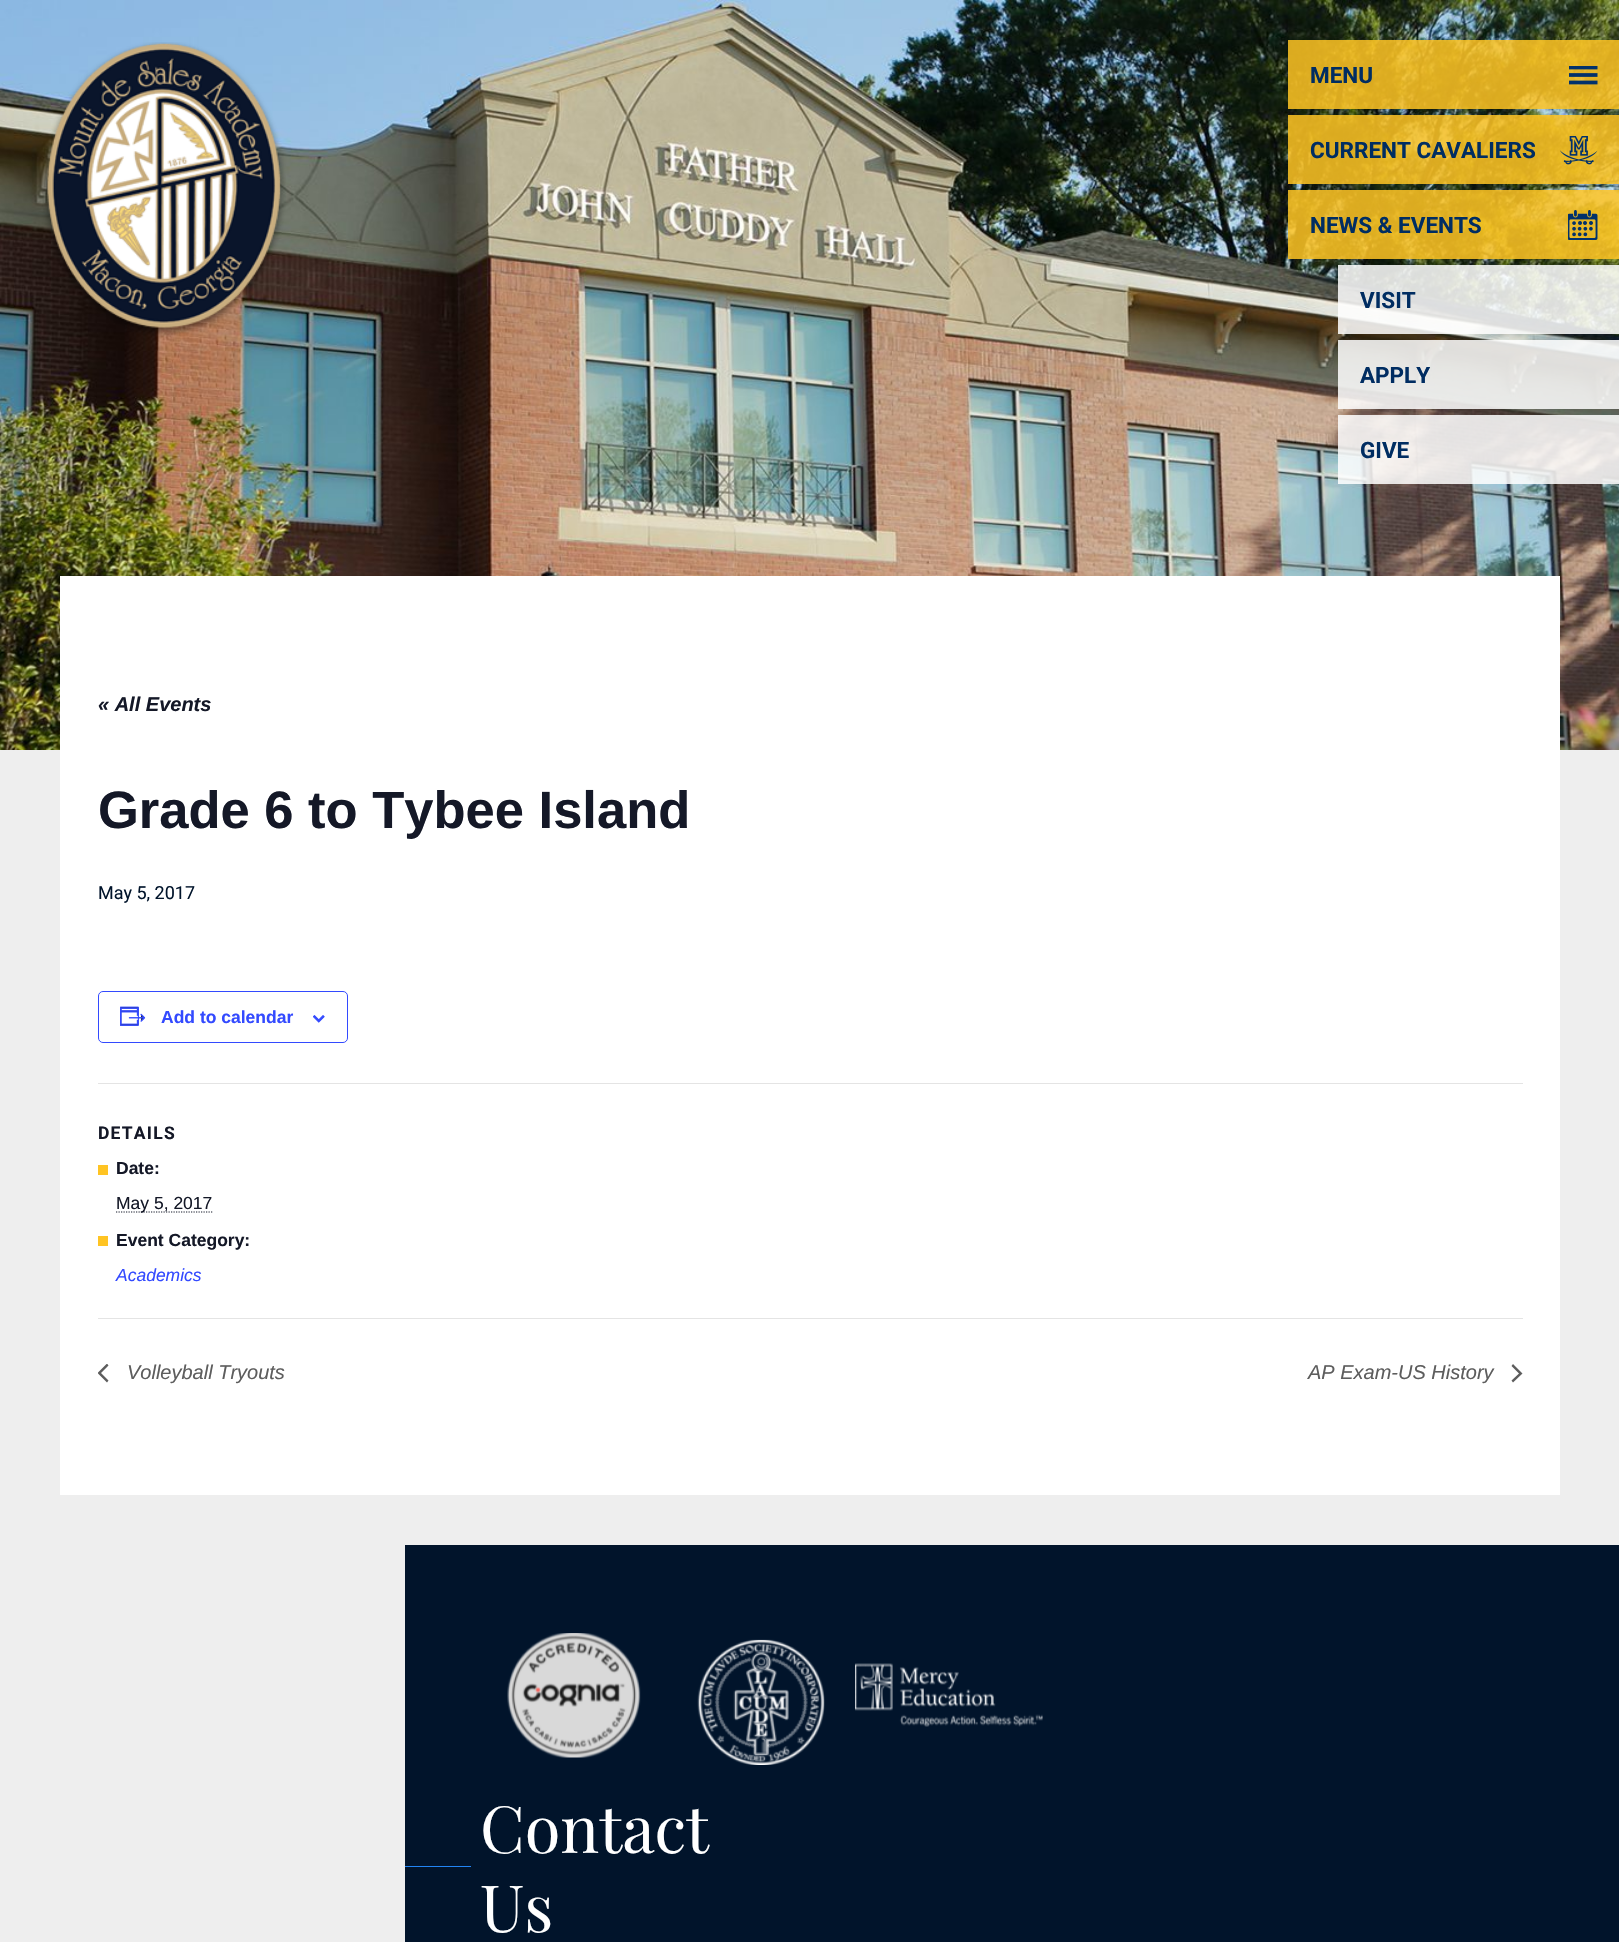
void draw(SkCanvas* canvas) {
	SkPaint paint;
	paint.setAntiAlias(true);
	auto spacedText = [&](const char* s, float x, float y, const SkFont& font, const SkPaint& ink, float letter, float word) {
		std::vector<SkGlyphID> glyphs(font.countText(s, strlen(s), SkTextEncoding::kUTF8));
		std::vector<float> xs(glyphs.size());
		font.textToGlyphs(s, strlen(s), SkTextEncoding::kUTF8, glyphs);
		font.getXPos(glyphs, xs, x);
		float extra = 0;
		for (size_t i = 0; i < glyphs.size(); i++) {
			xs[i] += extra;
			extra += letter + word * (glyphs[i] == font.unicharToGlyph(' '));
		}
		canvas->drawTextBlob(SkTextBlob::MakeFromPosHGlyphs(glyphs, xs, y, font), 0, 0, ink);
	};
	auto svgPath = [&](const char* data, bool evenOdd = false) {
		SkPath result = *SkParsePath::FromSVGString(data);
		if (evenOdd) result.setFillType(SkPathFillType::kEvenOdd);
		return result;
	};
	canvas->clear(0xffeeeeee);
	canvas->drawImageRect(SkImages::DeferredFromEncodedData(SkData::MakeFromFileName("img1.png")), SkRect::MakeXYWH(0, 0, 1619, 750), SkSamplingOptions());
	canvas->drawImageRect(SkImages::DeferredFromEncodedData(SkData::MakeFromFileName("img2.png")), SkRect::MakeXYWH(42, 42, 244, 295), SkSamplingOptions());
	paint.setColor(0xd9ffc423);
	canvas->drawRect(SkRect::MakeXYWH(1288, 40, 331, 69), paint);
	SkFont f1(fontMgr->matchFamilyStyle("Roboto", SkFontStyle::Bold()), 22.5);
	f1.setSubpixel(true);
	paint.setColor(0xff002d62);
	canvas->drawString("MENU", 1310, 83, f1, paint);
	canvas->drawImageRect(SkImages::DeferredFromEncodedData(SkData::MakeFromFileName("img3.png")), SkRect::MakeXYWH(1569, 66, 29, 19), SkSamplingOptions());
	paint.setColor(0xd9ffc423);
	canvas->drawRect(SkRect::MakeXYWH(1288, 115, 331, 69), paint);
	paint.setColor(0xff002d62);
	canvas->drawString("CURRENT CAVALIERS", 1310, 158, f1, paint);
	canvas->drawImageRect(SkImages::DeferredFromEncodedData(SkData::MakeFromFileName("img4.png")), SkRect::MakeXYWH(1560, 136, 38, 29), SkSamplingOptions());
	paint.setColor(0xd9ffc423);
	canvas->drawRect(SkRect::MakeXYWH(1288, 190, 331, 69), paint);
	paint.setColor(0xff002d62);
	canvas->drawString("NEWS & EVENTS", 1310, 233, f1, paint);
	canvas->drawImageRect(SkImages::DeferredFromEncodedData(SkData::MakeFromFileName("img5.png")), SkRect::MakeXYWH(1568, 210, 30, 30), SkSamplingOptions());
	paint.setColor(0xd9ffffff);
	canvas->drawRect(SkRect::MakeXYWH(1338, 265, 281, 69), paint);
	paint.setColor(0xff002d62);
	canvas->drawString("VISIT", 1360, 308, f1, paint);
	paint.setColor(0xd9ffffff);
	canvas->drawRect(SkRect::MakeXYWH(1338, 340, 281, 69), paint);
	paint.setColor(0xff002d62);
	canvas->drawString("APPLY", 1360, 383, f1, paint);
	paint.setColor(0xd9ffffff);
	canvas->drawRect(SkRect::MakeXYWH(1338, 415, 281, 69), paint);
	paint.setColor(0xff002d62);
	canvas->drawString("GIVE", 1360, 458, f1, paint);
	paint.setColor(0xffffffff);
	canvas->drawRect(SkRect::MakeXYWH(60, 576, 1500, 919), paint);
	SkFont f2(fontMgr->matchFamilyStyle("Liberation Sans", SkFontStyle::BoldItalic()), 20);
	f2.setSubpixel(true);
	paint.setColor(0xff141827);
	canvas->drawString("« All Events", 98, 711, f2, paint);
	SkFont f3(fontMgr->matchFamilyStyle("Liberation Sans", SkFontStyle::Bold()), 52.5);
	f3.setSubpixel(true);
	canvas->drawString("Grade 6 to Tybee Island", 98, 828, f3, paint);
	SkFont f4(fontMgr->matchFamilyStyle("Roboto", SkFontStyle::Normal()), 18);
	f4.setSubpixel(true);
	paint.setColor(0xff01142b);
	canvas->drawString("May 5, 2017", 98, 899, f4, paint);
	paint.setStroke(true);
	paint.setStrokeWidth(1);
	paint.setColor(0xff334aff);
	canvas->drawRoundRect(SkRect::MakeXYWH(98.5, 991.5, 249, 51), 4.5, 4.5, paint);
	canvas->drawImageRect(SkImages::DeferredFromEncodedData(SkData::MakeFromFileName("img6.png")), SkRect::MakeXYWH(120, 1006, 26, 20), SkSamplingOptions());
	SkFont f5(fontMgr->matchFamilyStyle("Liberation Sans", SkFontStyle::Bold()), 17.5);
	f5.setSubpixel(true);
	paint.setStroke(false);
	canvas->drawString("Add to calendar", 161, 1023, f5, paint);
	canvas->drawImageRect(SkImages::DeferredFromEncodedData(SkData::MakeFromFileName("img7.png")), SkRect::MakeXYWH(313, 1015, 12, 8), SkSamplingOptions());
	paint.setColor(0xffe4e4e4);
	canvas->drawRect(SkRect::MakeXYWH(98, 1083, 1425, 1), paint);
	SkFont f6(fontMgr->matchFamilyStyle("Roboto", SkFontStyle::Bold()), 17.5);
	f6.setSubpixel(true);
	paint.setColor(0xff141827);
	spacedText("DETAILS", 98, 1139, f6, paint, 1.25, 0);
	paint.setColor(0xffffc423);
	canvas->drawRect(SkRect::MakeXYWH(98, 1165, 10, 10), paint);
	paint.setColor(0xff141827);
	canvas->drawString("Date:", 116, 1174, f5, paint);
	paint.setStroke(true);
	paint.setStrokeWidth(1.2);
	paint.setPathEffect(SkDashPathEffect::Make({{1.25f, 1.25f}}, 0));
	canvas->drawPath(svgPath("M116 1212H212.5"), paint);
	paint.setPathEffect(nullptr);
	SkFont f7(fontMgr->matchFamilyStyle("Liberation Sans", SkFontStyle::Normal()), 17.5);
	f7.setSubpixel(true);
	paint.setStroke(false);
	canvas->drawString("May 5, 2017", 116, 1209, f7, paint);
	paint.setColor(0xffffc423);
	canvas->drawRect(SkRect::MakeXYWH(98, 1236, 10, 10), paint);
	paint.setColor(0xff141827);
	canvas->drawString("Event Category:", 116, 1246, f5, paint);
	SkFont f8(fontMgr->matchFamilyStyle("Liberation Sans", SkFontStyle::Italic()), 17.5);
	f8.setSubpixel(true);
	paint.setColor(0xff334aff);
	canvas->drawString("Academics", 116, 1281, f8, paint);
	paint.setColor(0xffe4e4e4);
	canvas->drawRect(SkRect::MakeXYWH(98, 1318, 1425, 1), paint);
	canvas->save();
	canvas->clipRect(SkRect::MakeXYWH(98, 1364, 11, 19));
	paint.setColor(0xff5d5d5d);
	canvas->drawPath(svgPath("M108.5 1380.5L107 1382.5L97.5 1373L107 1363.5L108.5 1365.5L101 1373Z"), paint);
	canvas->restore();
	SkFont f9(fontMgr->matchFamilyStyle("Liberation Sans", SkFontStyle::Italic()), 20);
	f9.setSubpixel(true);
	canvas->drawString("Volleyball Tryouts", 127, 1379, f9, paint);
	canvas->drawString("AP Exam-US History", 1308, 1379, f9, paint);
	canvas->drawPath(svgPath("M1511.5 1366L1513 1364L1522.5 1373.5L1513 1382.5L1511.5 1380.5L1519 1373.5Z"), paint);
	paint.setColor(0xff01142b);
	canvas->drawRect(SkRect::MakeXYWH(405, 1545, 1214, 397), paint);
	canvas->drawImageRect(SkImages::DeferredFromEncodedData(SkData::MakeFromFileName("img8.png")), SkRect::MakeXYWH(507, 1633, 134, 125), SkSamplingOptions());
	canvas->drawImageRect(SkImages::DeferredFromEncodedData(SkData::MakeFromFileName("img9.png")), SkRect::MakeXYWH(697, 1639, 128, 126), SkSamplingOptions());
	canvas->drawImageRect(SkImages::DeferredFromEncodedData(SkData::MakeFromFileName("img10.png")), SkRect::MakeXYWH(855, 1663, 188, 64), SkSamplingOptions());
	SkFont f10(fontMgr->matchFamilyStyle("Playfair Display", SkFontStyle::Normal()), 65);
	f10.setSubpixel(true);
	paint.setColor(0xffffffff);
	canvas->drawString("Contact", 480, 1853, f10, paint);
	paint.setColor(0xff2285f4);
	canvas->drawRect(SkRect::MakeXYWH(405, 1866, 66, 1), paint);
	paint.setColor(0xffffffff);
	canvas->drawString("Us", 480, 1932, f10, paint);
}
